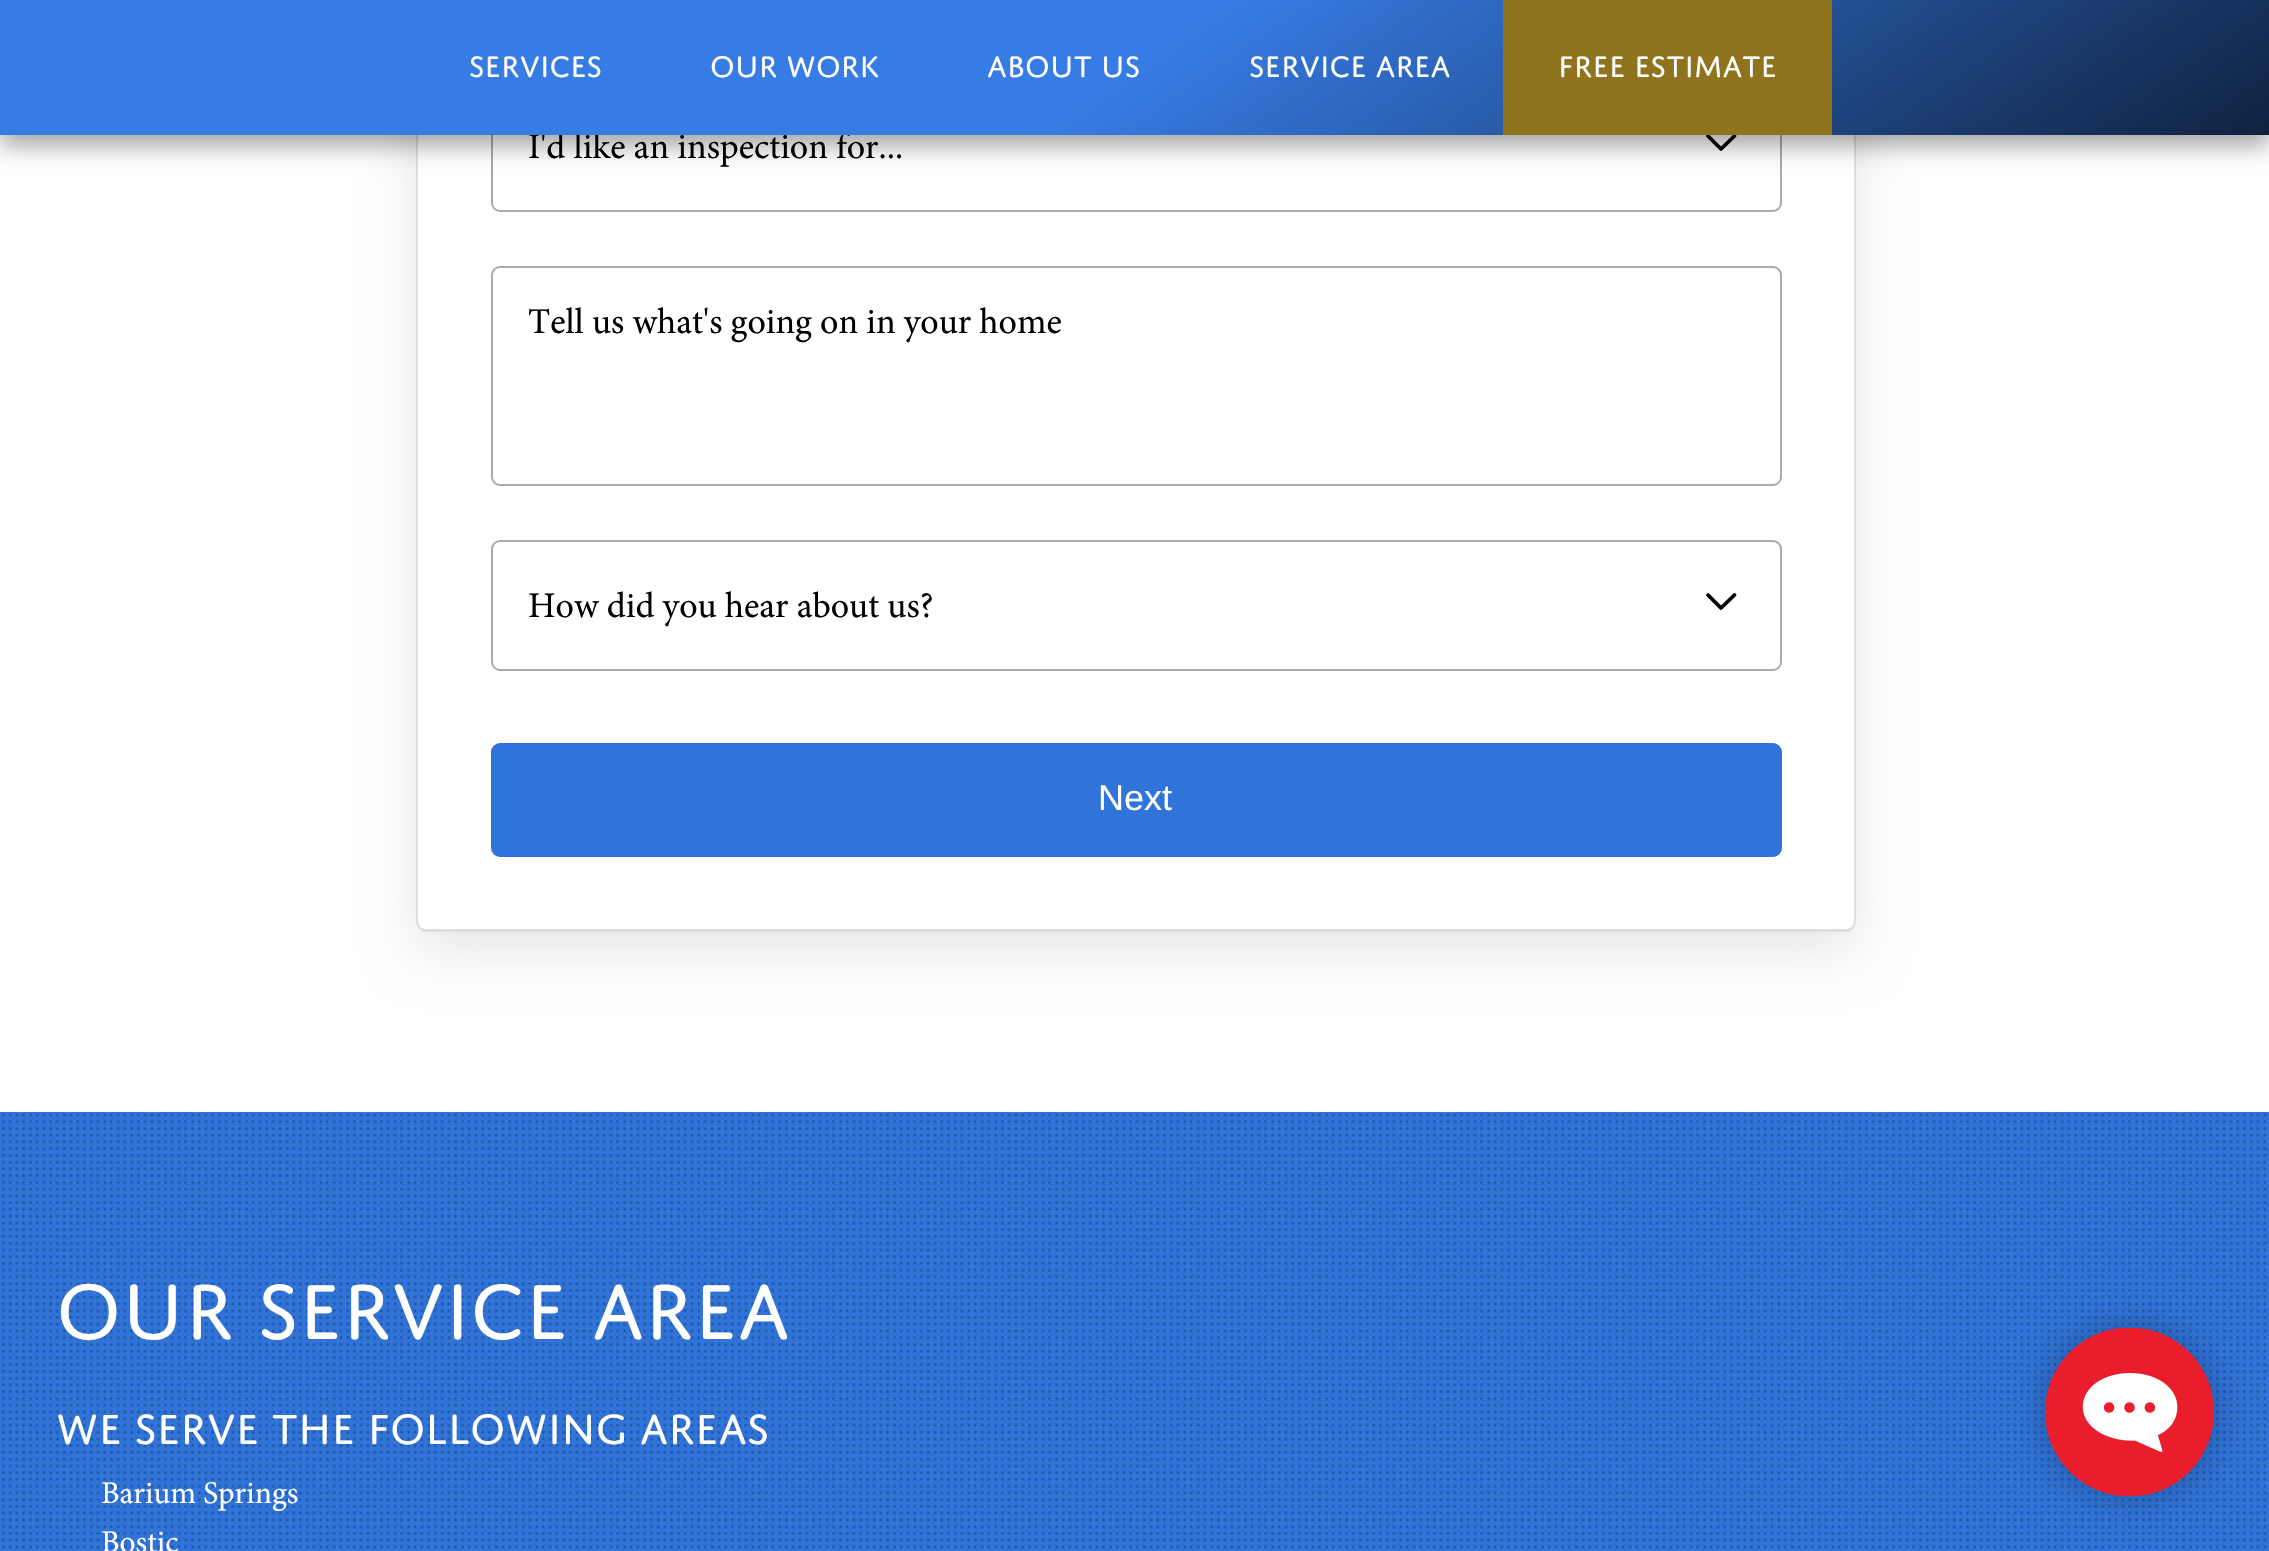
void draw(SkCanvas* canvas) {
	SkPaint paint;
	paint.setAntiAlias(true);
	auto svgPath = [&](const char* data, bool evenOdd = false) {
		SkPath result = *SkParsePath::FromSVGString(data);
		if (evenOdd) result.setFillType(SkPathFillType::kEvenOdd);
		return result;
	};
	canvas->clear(0xff3074d9);
	paint.setColor(0xffffffff);
	canvas->drawRect(SkRect::MakeXYWH(0, 135, 2269, 977), paint);
	paint.setColor(0x1a000000);
	paint.setMaskFilter(SkMaskFilter::MakeBlur(kNormal_SkBlurStyle, 27));
	canvas->drawRoundRect(SkRect::MakeXYWH(416, -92, 1440, 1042), 11, 11, paint);
	paint.setMaskFilter(nullptr);
	paint.setColor(0xffffffff);
	canvas->drawPath(svgPath("M416-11H1856V921C1856 927 1851 932 1845 932H427C421 932 416 927 416 921Z"), paint);
	paint.setColor(0xffdddddd);
	canvas->drawPath(svgPath("M416-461H1856V921C1856 927 1852 932 1846 932H426C421 932 416 927 416 921ZM418-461H1854V921C1854 926 1850 929 1846 929H426C422 929 418 926 418 921Z", true), paint);
	paint.setStroke(true);
	paint.setStrokeWidth(2);
	paint.setColor(0xffaaaaaa);
	canvas->drawRoundRect(SkRect::MakeXYWH(492, 82, 1289, 129), 8, 8, paint);
	paint.setStrokeWidth(3.8);
	paint.setStrokeCap(SkPaint::kRound_Cap);
	paint.setStrokeJoin(SkPaint::kRound_Join);
	paint.setColor(0xff000000);
	canvas->drawPath(svgPath("M1734.5 136L1721 149L1708 136"), paint);
	paint.setStroke(false);
	paint.setColor(0x59000000);
	paint.setMaskFilter(SkMaskFilter::MakeBlur(kNormal_SkBlurStyle, 11));
	canvas->drawRect(SkRect::MakeXYWH(0, 11, 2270, 135), paint);
	paint.setMaskFilter(nullptr);
	SkFont f1(fontMgr->matchFamilyStyle("Minion", SkFontStyle::Normal()), 36);
	f1.setSubpixel(true);
	paint.setColor(0xff000000);
	canvas->drawString("I'd like an inspection for...", 528, 158, f1, paint);
	{
		const SkColor colors[] = {0xff0f2240, 0xff377ce5};
		const float stops[] = {0, 0.5};
		const SkPoint ends[] = {{1540, 646}, {730, -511}};
		paint.setShader(SkGradientShader::MakeLinear(ends, colors, stops, 2, SkTileMode::kClamp));
		paint.setAlpha(255);
	}
	canvas->drawRect(SkRect::MakeXYWH(0, 0, 2269, 135), paint);
	SkFont f2(fontMgr->matchFamilyStyle("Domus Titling", SkFontStyle::Normal()), 31.5);
	f2.setSubpixel(true);
	paint.setShader(nullptr);
	paint.setColor(0xffffffff);
	canvas->drawString("SERVICES", 469, 77, f2, paint);
	canvas->drawString("OUR WORK", 710, 77, f2, paint);
	canvas->drawString("ABOUT US", 987, 77, f2, paint);
	canvas->drawString("SERVICE AREA", 1249, 77, f2, paint);
	paint.setColor(0xff90731d);
	canvas->drawRect(SkRect::MakeXYWH(1503, 0, 329, 135), paint);
	paint.setColor(0xffffffff);
	canvas->drawString("FREE ESTIMATE", 1558, 77, f2, paint);
	paint.setStroke(true);
	paint.setStrokeWidth(2);
	paint.setStrokeCap(SkPaint::kButt_Cap);
	paint.setStrokeJoin(SkPaint::kMiter_Join);
	paint.setColor(0xffaaaaaa);
	canvas->drawRoundRect(SkRect::MakeXYWH(492, 267, 1289, 218), 8, 8, paint);
	paint.setStroke(false);
	paint.setColor(0xff000000);
	canvas->drawString("Tell us what's going on in your home", 528, 333, f1, paint);
	paint.setStroke(true);
	paint.setColor(0xffaaaaaa);
	canvas->drawRoundRect(SkRect::MakeXYWH(492, 541, 1289, 129), 8, 8, paint);
	paint.setStroke(false);
	paint.setColor(0xff000000);
	canvas->drawString("How did you hear about us?", 528, 617, f1, paint);
	paint.setStroke(true);
	paint.setStrokeWidth(3.8);
	paint.setStrokeCap(SkPaint::kRound_Cap);
	paint.setStrokeJoin(SkPaint::kRound_Join);
	canvas->drawPath(svgPath("M1734.5 595L1721 608L1708 595"), paint);
	paint.setStroke(false);
	paint.setColor(0xff3074d9);
	canvas->drawRoundRect(SkRect::MakeXYWH(491, 743, 1291, 114), 9, 9, paint);
	SkFont f3(fontMgr->matchFamilyStyle("Liberation Sans", SkFontStyle::Normal()), 36);
	f3.setSubpixel(true);
	paint.setColor(0xffffffff);
	canvas->drawString("Next", 1098, 810, f3, paint);
	canvas->drawImageRect(SkImages::DeferredFromEncodedData(SkData::MakeFromFileName("img1.png")), SkRect::MakeXYWH(1, 1113, 2266, 436), SkSamplingOptions());
	SkFont f4(fontMgr->matchFamilyStyle("Domus Titling", SkFontStyle::Normal()), 83.25);
	f4.setSubpixel(true);
	canvas->drawString("our service area", 56, 1339, f4, paint);
	SkFont f5(fontMgr->matchFamilyStyle("Domus Titling", SkFontStyle::Normal()), 45);
	f5.setSubpixel(true);
	canvas->drawString("We serve the following areas", 56, 1444, f5, paint);
	SkFont f6(fontMgr->matchFamilyStyle("Minion", SkFontStyle::Normal()), 31.5);
	f6.setSubpixel(true);
	canvas->drawString("Barium Springs", 101, 1503, f6, paint);
	canvas->drawString("Bostic", 101, 1552, f6, paint);
	paint.setColor(0x33000000);
	paint.setMaskFilter(SkMaskFilter::MakeBlur(kNormal_SkBlurStyle, 17));
	canvas->drawRoundRect(SkRect::MakeXYWH(2041, 1323, 178, 178), 89, 89, paint);
	paint.setMaskFilter(nullptr);
	canvas->drawImageRect(SkImages::DeferredFromEncodedData(SkData::MakeFromFileName("img2.png")), SkRect::MakeXYWH(2045, 1328, 169, 168), SkSamplingOptions());
}
